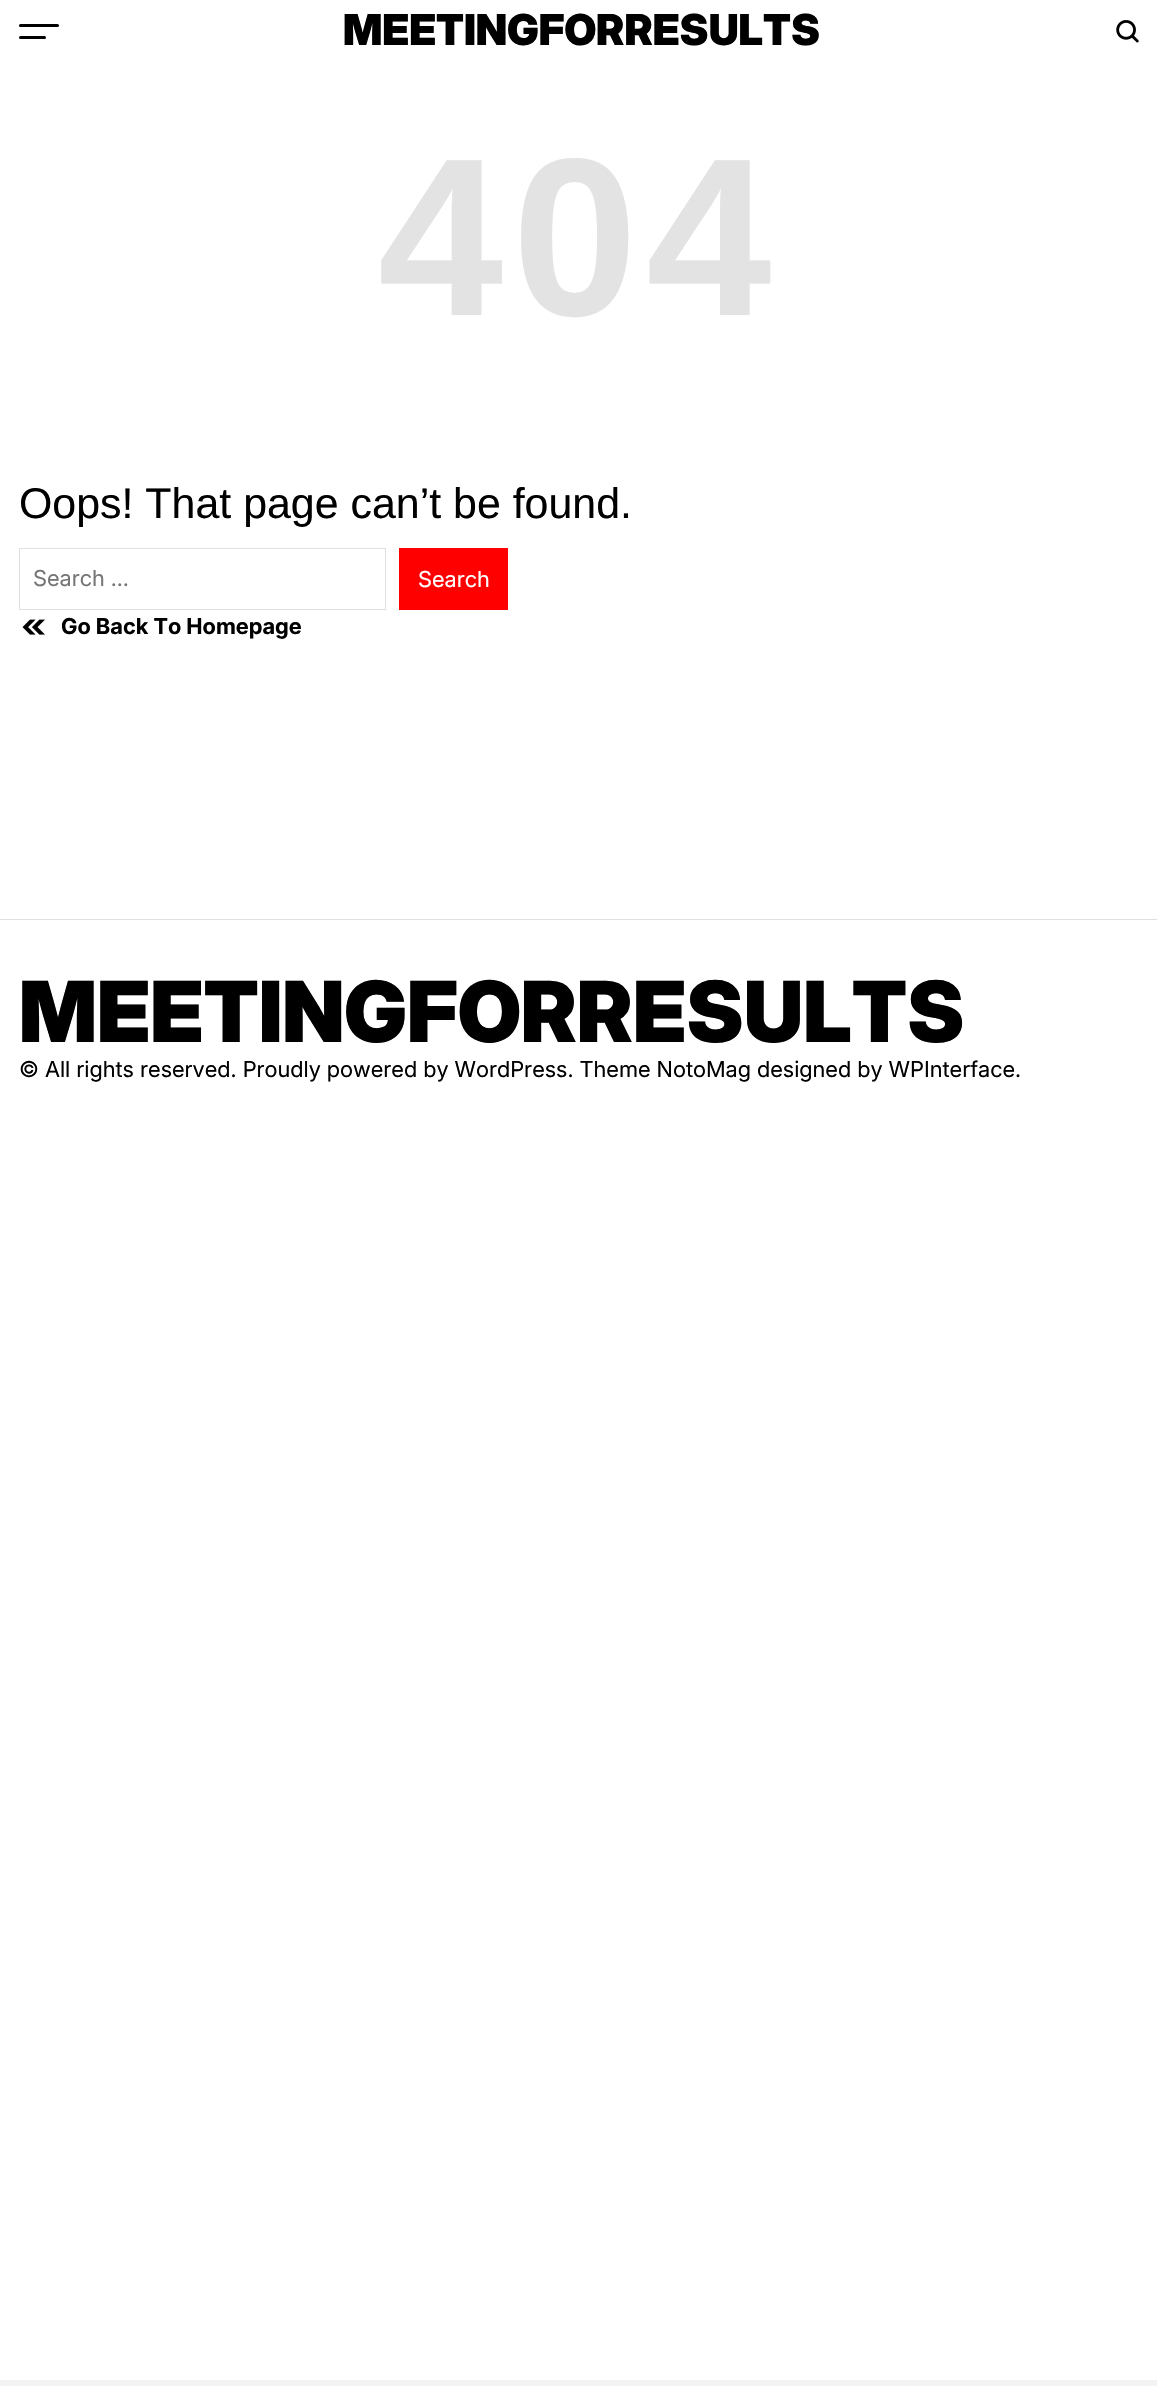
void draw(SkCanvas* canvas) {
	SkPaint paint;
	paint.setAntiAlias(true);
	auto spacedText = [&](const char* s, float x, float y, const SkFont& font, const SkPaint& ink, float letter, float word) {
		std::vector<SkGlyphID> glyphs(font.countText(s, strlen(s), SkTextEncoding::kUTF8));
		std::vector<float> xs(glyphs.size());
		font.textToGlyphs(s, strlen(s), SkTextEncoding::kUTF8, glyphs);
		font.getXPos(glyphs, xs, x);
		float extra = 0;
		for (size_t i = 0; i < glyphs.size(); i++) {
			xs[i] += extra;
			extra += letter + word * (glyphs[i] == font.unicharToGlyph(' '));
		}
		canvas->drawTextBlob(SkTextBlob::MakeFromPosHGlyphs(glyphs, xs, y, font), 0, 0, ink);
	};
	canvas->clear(0xffffffff);
	paint.setColor(0xff000000);
	canvas->drawRoundRect(SkRect::MakeXYWH(19, 24, 40, 3), 1.5, 1.5, paint);
	canvas->drawRoundRect(SkRect::MakeXYWH(19, 36, 27, 3), 1.5, 1.5, paint);
	SkFont f1(fontMgr->matchFamilyStyle("Inter", SkFontStyle(900, SkFontStyle::kNormal_Width, SkFontStyle::kUpright_Slant)), 42.5);
	f1.setSubpixel(true);
	canvas->drawString("MEETINGFORRESULTS", 343, 45, f1, paint);
	canvas->drawImageRect(SkImages::DeferredFromEncodedData(SkData::MakeFromFileName("img1.png")), SkRect::MakeXYWH(1116, 20, 23, 23), SkSamplingOptions());
	SkFont f2(fontMgr->matchFamilyStyle("Liberation Sans", SkFontStyle::Bold()), 225);
	f2.setSubpixel(true);
	paint.setColor(0xffe3e3e3);
	spacedText("404", 378, 315, f2, paint, 9, 0);
	SkFont f3(fontMgr->matchFamilyStyle("Liberation Sans", SkFontStyle::Normal()), 42.9);
	f3.setSubpixel(true);
	paint.setColor(0xff000000);
	canvas->drawString("Oops! That page can’t be found.", 19, 518, f3, paint);
	paint.setStroke(true);
	paint.setStrokeWidth(1);
	paint.setColor(0xffdedfdf);
	canvas->drawRect(SkRect::MakeXYWH(19.5, 548.5, 366, 61), paint);
	SkFont f4(fontMgr->matchFamilyStyle("Inter", SkFontStyle::Normal()), 21.95);
	f4.setSubpixel(true);
	paint.setStroke(false);
	paint.setColor(0xff757575);
	canvas->drawString("Search …", 33, 586, f4, paint);
	paint.setColor(0xffff0000);
	canvas->drawRect(SkRect::MakeXYWH(399, 548, 109, 62), paint);
	paint.setColor(0xffffffff);
	canvas->drawString("Search", 418, 587, f4, paint);
	canvas->drawImageRect(SkImages::DeferredFromEncodedData(SkData::MakeFromFileName("img2.png")), SkRect::MakeXYWH(22, 619, 23, 16), SkSamplingOptions());
	SkFont f5(fontMgr->matchFamilyStyle("Inter", SkFontStyle::Bold()), 21.95);
	f5.setSubpixel(true);
	paint.setColor(0xff000000);
	canvas->drawString("Go Back To Homepage", 61, 634, f5, paint);
	paint.setColor(0xffdedfdf);
	canvas->drawRect(SkRect::MakeXYWH(0, 919, 1157, 1), paint);
	SkFont f6(fontMgr->matchFamilyStyle("Inter", SkFontStyle(900, SkFontStyle::kNormal_Width, SkFontStyle::kUpright_Slant)), 84.25);
	f6.setSubpixel(true);
	paint.setColor(0xff000000);
	canvas->drawString("MEETINGFORRESULTS", 19, 1042, f6, paint);
	canvas->drawString("© All rights reserved. Proudly powered by WordPress. Theme NotoMag designed by WPInterface.", 19, 1077, f4, paint);
	paint.setColor(0xfff3f3f3);
	canvas->drawRect(SkRect::MakeXYWH(0, 2380, 1157, 6), paint);
}
